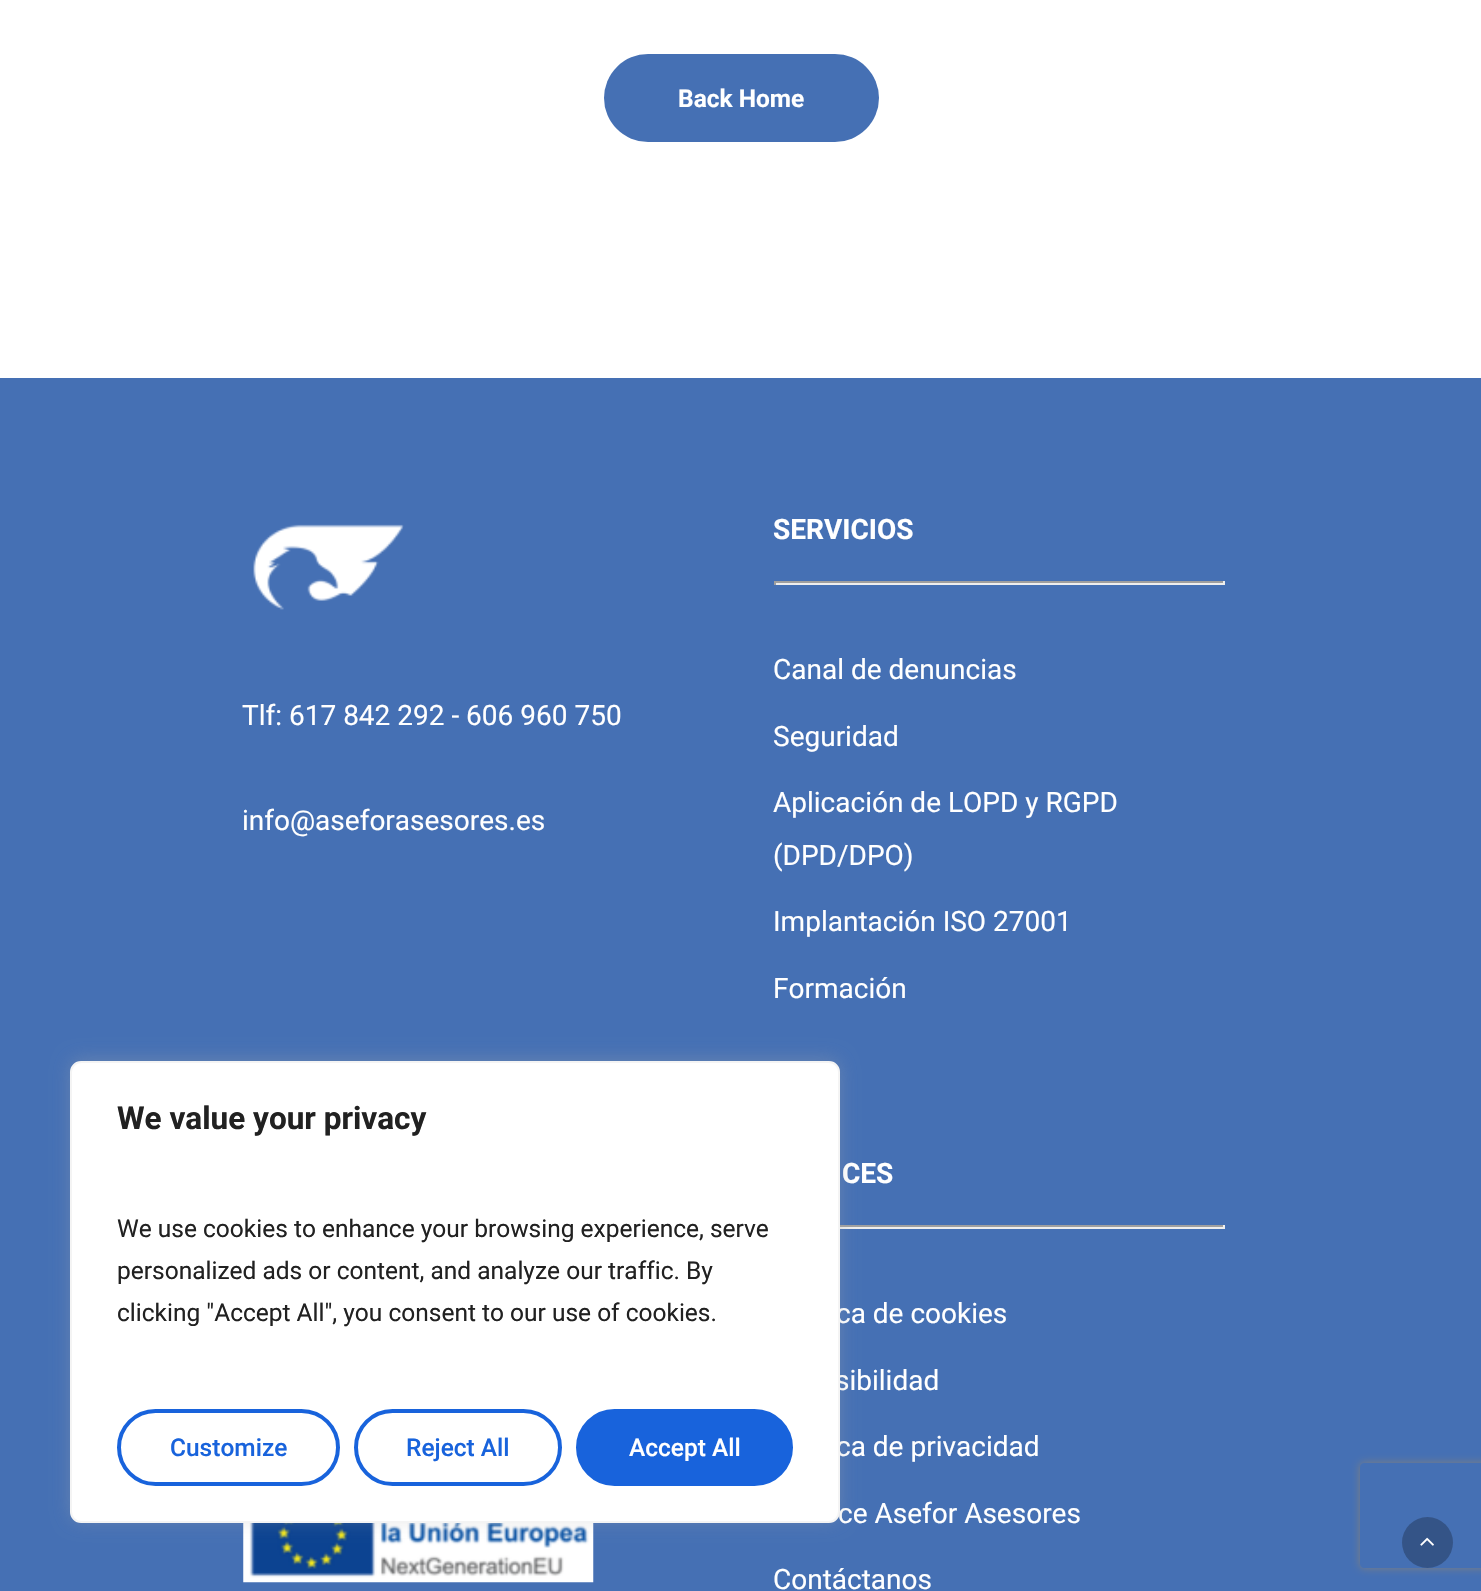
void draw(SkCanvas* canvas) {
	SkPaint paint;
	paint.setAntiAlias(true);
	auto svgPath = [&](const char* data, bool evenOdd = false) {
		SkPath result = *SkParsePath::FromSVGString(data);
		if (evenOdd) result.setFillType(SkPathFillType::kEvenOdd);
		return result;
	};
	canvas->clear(0xffffffff);
	paint.setColor(0xff4570b4);
	canvas->drawRoundRect(SkRect::MakeXYWH(604, 54, 275, 88), 44, 44, paint);
	SkFont f1(fontMgr->matchFamilyStyle("Roboto", SkFontStyle::Bold()), 24.5);
	f1.setSubpixel(true);
	paint.setColor(0xffffffff);
	canvas->drawString("Back Home", 678, 107, f1, paint);
	paint.setColor(0xff4570b4);
	canvas->drawRect(SkRect::MakeXYWH(0, 378, 1481, 1213), paint);
	canvas->drawImageRect(SkImages::DeferredFromEncodedData(SkData::MakeFromFileName("img1.png")), SkRect::MakeXYWH(253, 524, 151, 86), SkSamplingOptions());
	SkFont f2(fontMgr->matchFamilyStyle("Roboto", SkFontStyle::Normal()), 28);
	f2.setSubpixel(true);
	paint.setColor(0xffffffff);
	canvas->drawString("Tlf: 617 842 292 - 606 960 750", 242, 725, f2, paint);
	canvas->drawString("info@aseforasesores.es", 242, 830, f2, paint);
	SkFont f3(fontMgr->matchFamilyStyle("Roboto", SkFontStyle::Bold()), 28);
	f3.setSubpixel(true);
	canvas->drawString("SERVICIOS", 773, 539, f3, paint);
	paint.setColor(0xff9f9f9f);
	canvas->drawRect(SkRect::MakeXYWH(774, 581, 451, 2), paint);
	paint.setColor(0xffeeeeee);
	canvas->drawRect(SkRect::MakeXYWH(1223, 581, 2, 4), paint);
	canvas->drawRect(SkRect::MakeXYWH(774, 583, 451, 2), paint);
	paint.setColor(0xff9f9f9f);
	canvas->drawRect(SkRect::MakeXYWH(774, 581, 2, 4), paint);
	paint.setColor(0xffffffff);
	canvas->drawString("Canal de denuncias", 773, 679, f2, paint);
	canvas->drawString("Seguridad", 773, 746, f2, paint);
	canvas->drawString("Aplicación de LOPD y RGPD", 773, 812, f2, paint);
	canvas->drawString("(DPD/DPO)", 773, 865, f2, paint);
	canvas->drawString("Implantación ISO 27001", 773, 931, f2, paint);
	canvas->drawString("Formación", 773, 998, f2, paint);
	canvas->drawImageRect(SkImages::DeferredFromEncodedData(SkData::MakeFromFileName("img2.png")), SkRect::MakeXYWH(243, 1523, 351, 60), SkSamplingOptions());
	canvas->drawString("CES", 842, 1183, f3, paint);
	paint.setColor(0xff9f9f9f);
	canvas->drawRect(SkRect::MakeXYWH(840, 1225, 385, 2), paint);
	paint.setColor(0xffeeeeee);
	canvas->drawRect(SkRect::MakeXYWH(1223, 1225, 2, 4), paint);
	canvas->drawRect(SkRect::MakeXYWH(840, 1227, 385, 2), paint);
	paint.setColor(0xffffffff);
	canvas->drawString("ca de cookies", 836, 1323, f2, paint);
	canvas->drawString("sibilidad", 835, 1390, f2, paint);
	canvas->drawString("ca de privacidad", 836, 1456, f2, paint);
	canvas->drawString("ce Asefor Asesores", 838, 1523, f2, paint);
	canvas->drawString("Contáctanos", 773, 1589, f2, paint);
	paint.setColor(0x4dacabab);
	paint.setMaskFilter(SkMaskFilter::MakeBlur(kNormal_SkBlurStyle, 9));
	canvas->drawRoundRect(SkRect::MakeXYWH(70, 1059, 770, 462), 11, 11, paint);
	paint.setMaskFilter(nullptr);
	paint.setColor(0xffffffff);
	canvas->drawRoundRect(SkRect::MakeXYWH(71, 1062, 768, 460), 10, 10, paint);
	paint.setStroke(true);
	paint.setStrokeWidth(2);
	paint.setColor(0xfff4f4f4);
	canvas->drawRoundRect(SkRect::MakeXYWH(71, 1062, 768, 460), 10, 10, paint);
	SkFont f4(fontMgr->matchFamilyStyle("Roboto", SkFontStyle::Bold()), 31.5);
	f4.setSubpixel(true);
	paint.setStroke(false);
	paint.setColor(0xff212121);
	canvas->drawString("We value your privacy", 117, 1129, f4, paint);
	SkFont f5(fontMgr->matchFamilyStyle("Roboto", SkFontStyle::Normal()), 24.5);
	f5.setSubpixel(true);
	canvas->drawString("We use cookies to enhance your browsing experience, serve", 117, 1237, f5, paint);
	canvas->drawString("personalized ads or content, and analyze our traffic. By", 117, 1279, f5, paint);
	canvas->drawString("clicking \"Accept All\", you consent to our use of cookies.", 117, 1321, f5, paint);
	paint.setStroke(true);
	paint.setStrokeWidth(4);
	paint.setColor(0xff1863dc);
	canvas->drawRoundRect(SkRect::MakeXYWH(119, 1411, 219, 73), 36.5, 36.5, paint);
	SkFont f6(fontMgr->matchFamilyStyle("Roboto", SkFontStyle(500, SkFontStyle::kNormal_Width, SkFontStyle::kUpright_Slant)), 24.5);
	f6.setSubpixel(true);
	paint.setStroke(false);
	canvas->drawString("Customize", 170, 1456, f6, paint);
	paint.setStroke(true);
	canvas->drawRoundRect(SkRect::MakeXYWH(356, 1411, 204, 73), 36.5, 36.5, paint);
	paint.setStroke(false);
	canvas->drawString("Reject All", 406, 1456, f6, paint);
	canvas->drawRoundRect(SkRect::MakeXYWH(578, 1411, 213, 73), 36.5, 36.5, paint);
	paint.setStroke(true);
	canvas->drawRoundRect(SkRect::MakeXYWH(578, 1411, 213, 73), 36.5, 36.5, paint);
	paint.setStroke(false);
	paint.setColor(0xffffffff);
	canvas->drawString("Accept All", 629, 1456, f6, paint);
	canvas->save();
	canvas->clipPath(svgPath("M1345 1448H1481V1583H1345ZM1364 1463H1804C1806 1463 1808 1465 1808 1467V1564C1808 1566 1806 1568 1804 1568H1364C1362 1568 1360 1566 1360 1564V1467C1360 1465 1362 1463 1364 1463Z", true), true);
	paint.setColor(0xff808080);
	paint.setMaskFilter(SkMaskFilter::MakeBlur(kNormal_SkBlurStyle, 4.5));
	canvas->drawRoundRect(SkRect::MakeXYWH(1360, 1463, 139, 105), 4, 4, paint);
	paint.setMaskFilter(nullptr);
	canvas->restore();
	paint.setColor(0xff345487);
	canvas->drawCircle(1427.5, 1542.5, 25.5, paint);
	canvas->drawImageRect(SkImages::DeferredFromEncodedData(SkData::MakeFromFileName("img3.png")), SkRect::MakeXYWH(1420, 1537, 14, 9), SkSamplingOptions());
}
